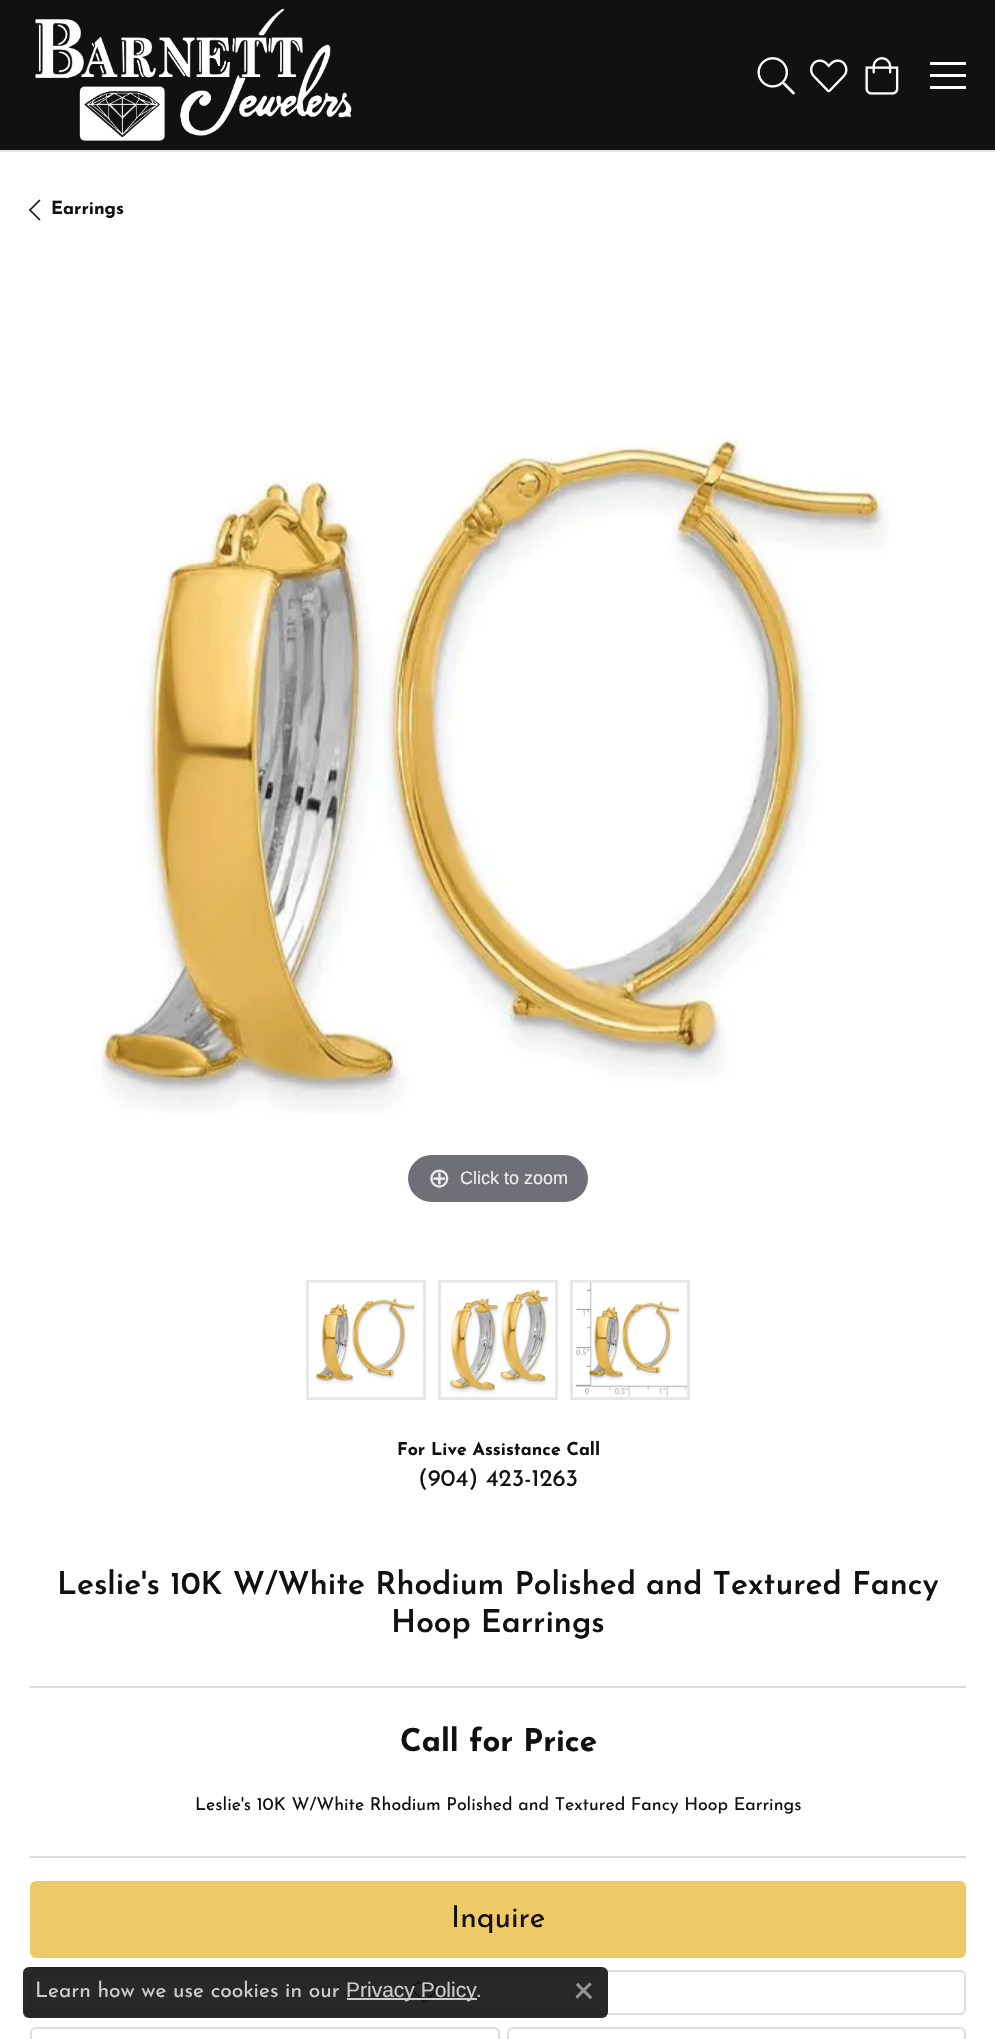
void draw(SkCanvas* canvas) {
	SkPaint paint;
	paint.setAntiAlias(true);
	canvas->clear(0xffffffff);
	paint.setStroke(true);
	paint.setStrokeWidth(2);
	paint.setColor(0x1a000000);
	canvas->drawRect(SkRect::MakeXYWH(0, 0, 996, 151), paint);
	paint.setStroke(false);
	paint.setColor(0xff111111);
	canvas->drawRect(SkRect::MakeXYWH(0, 0, 995, 150), paint);
	canvas->drawImageRect(SkImages::DeferredFromEncodedData(SkData::MakeFromFileName("img1.png")), SkRect::MakeXYWH(35, 9, 317, 132), SkSamplingOptions());
	canvas->drawImageRect(SkImages::DeferredFromEncodedData(SkData::MakeFromFileName("img2.png")), SkRect::MakeXYWH(757, 57, 38, 38), SkSamplingOptions());
	canvas->drawImageRect(SkImages::DeferredFromEncodedData(SkData::MakeFromFileName("img3.png")), SkRect::MakeXYWH(810, 59, 38, 34), SkSamplingOptions());
	canvas->drawImageRect(SkImages::DeferredFromEncodedData(SkData::MakeFromFileName("img4.png")), SkRect::MakeXYWH(865, 57, 34, 38), SkSamplingOptions());
	paint.setColor(0xffffffff);
	canvas->drawRect(SkRect::MakeXYWH(930, 62, 36, 3), paint);
	canvas->drawRect(SkRect::MakeXYWH(930, 74, 36, 3), paint);
	canvas->drawRect(SkRect::MakeXYWH(930, 86, 36, 3), paint);
	canvas->drawImageRect(SkImages::DeferredFromEncodedData(SkData::MakeFromFileName("img5.png")), SkRect::MakeXYWH(29, 199, 12, 22), SkSamplingOptions());
	SkFont f1(fontMgr->matchFamilyStyle("Josefin Sans", SkFontStyle::Bold()), 18);
	f1.setSubpixel(true);
	paint.setColor(0xff111111);
	canvas->drawString("Earrings", 51, 214, f1, paint);
	canvas->drawImageRect(SkImages::DeferredFromEncodedData(SkData::MakeFromFileName("img6.png")), SkRect::MakeXYWH(94, 433, 796, 681), SkSamplingOptions());
	paint.setColor(0xff6f7077);
	canvas->drawRoundRect(SkRect::MakeXYWH(408, 1155, 180, 47), 23.5, 23.5, paint);
	SkFont f2(fontMgr->matchFamilyStyle("DejaVu Sans", SkFontStyle::Normal()), 27);
	f2.setSubpixel(true);
	paint.setColor(0xffeeeeee);
	canvas->drawString("⊕", 428, 1187, f2, paint);
	SkFont f3(fontMgr->matchFamilyStyle("Liberation Sans", SkFontStyle::Normal()), 18);
	f3.setSubpixel(true);
	canvas->drawString("Click to zoom", 460, 1184, f3, paint);
	paint.setStroke(true);
	paint.setStrokeWidth(3);
	paint.setColor(0xffe7e7e7);
	canvas->drawRect(SkRect::MakeXYWH(307.5, 1281.5, 117, 117), paint);
	canvas->drawImageRect(SkImages::DeferredFromEncodedData(SkData::MakeFromFileName("img7.png")), SkRect::MakeXYWH(309, 1282, 114, 102), SkSamplingOptions());
	canvas->drawRect(SkRect::MakeXYWH(439.5, 1281.5, 117, 117), paint);
	canvas->drawImageRect(SkImages::DeferredFromEncodedData(SkData::MakeFromFileName("img8.png")), SkRect::MakeXYWH(441, 1282, 114, 112), SkSamplingOptions());
	canvas->drawRect(SkRect::MakeXYWH(571.5, 1281.5, 117, 117), paint);
	canvas->drawImageRect(SkImages::DeferredFromEncodedData(SkData::MakeFromFileName("img9.png")), SkRect::MakeXYWH(573, 1282, 114, 115), SkSamplingOptions());
	SkFont f4(fontMgr->matchFamilyStyle("Josefin Sans", SkFontStyle::Bold()), 17.8);
	f4.setSubpixel(true);
	paint.setStroke(false);
	paint.setColor(0xff111111);
	canvas->drawString("For Live Assistance Call", 397, 1455, f4, paint);
	SkFont f5(fontMgr->matchFamilyStyle("Josefin Sans", SkFontStyle::Normal()), 24);
	f5.setSubpixel(true);
	canvas->drawString("(904) 423-1263", 418, 1486, f5, paint);
	SkFont f6(fontMgr->matchFamilyStyle("Josefin Sans", SkFontStyle(600, SkFontStyle::kNormal_Width, SkFontStyle::kUpright_Slant)), 31.75);
	f6.setSubpixel(true);
	canvas->drawString("Leslie's 10K W/White Rhodium Polished and Textured Fancy", 57, 1594, f6, paint);
	canvas->drawString("Hoop Earrings", 391, 1632, f6, paint);
	paint.setColor(0xffd9d9d9);
	canvas->drawRect(SkRect::MakeXYWH(30, 1686, 936, 2), paint);
	SkFont f7(fontMgr->matchFamilyStyle("Josefin Sans", SkFontStyle::Bold()), 31.25);
	f7.setSubpixel(true);
	paint.setColor(0xff111111);
	canvas->drawString("Call for Price", 400, 1751, f7, paint);
	SkFont f8(fontMgr->matchFamilyStyle("Josefin Sans", SkFontStyle::Normal()), 17.8);
	f8.setSubpixel(true);
	canvas->drawString("Leslie's 10K W/White Rhodium Polished and Textured Fancy Hoop Earrings", 195, 1810, f8, paint);
	paint.setColor(0xffd9d9d9);
	canvas->drawRect(SkRect::MakeXYWH(30, 1856, 936, 2), paint);
	paint.setColor(0xffedc967);
	canvas->drawRoundRect(SkRect::MakeXYWH(31, 1882, 934, 75), 5, 5, paint);
	paint.setStroke(true);
	paint.setStrokeWidth(2);
	canvas->drawRoundRect(SkRect::MakeXYWH(31, 1882, 934, 75), 5, 5, paint);
	SkFont f9(fontMgr->matchFamilyStyle("Josefin Sans", SkFontStyle::Normal()), 30);
	f9.setSubpixel(true);
	paint.setStroke(false);
	paint.setColor(0xff111111);
	canvas->drawString("Inquire", 451, 1927, f9, paint);
	paint.setStroke(true);
	paint.setColor(0xffdddddd);
	canvas->drawRoundRect(SkRect::MakeXYWH(31, 1971, 934, 43), 5, 5, paint);
	canvas->drawImageRect(SkImages::DeferredFromEncodedData(SkData::MakeFromFileName("img10.png")), SkRect::MakeXYWH(412, 1982, 25, 21), SkSamplingOptions());
	canvas->drawRoundRect(SkRect::MakeXYWH(31, 2028, 468, 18), 5, 5, paint);
	canvas->drawRoundRect(SkRect::MakeXYWH(508, 2028, 457, 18), 5, 5, paint);
	paint.setStroke(false);
	paint.setColor(0xe6111111);
	canvas->drawRoundRect(SkRect::MakeXYWH(23, 1967, 585, 51), 6, 6, paint);
	SkFont f10(fontMgr->matchFamilyStyle("Josefin Sans", SkFontStyle::Normal()), 21);
	f10.setSubpixel(true);
	paint.setColor(0xffcccccc);
	canvas->drawString("Learn how we use cookies in our", 35, 1997, f10, paint);
	canvas->drawRect(SkRect::MakeXYWH(347, 1998, 130, 2), paint);
	SkFont f11(fontMgr->matchFamilyStyle("Liberation Sans", SkFontStyle::Normal()), 21);
	f11.setSubpixel(true);
	canvas->drawString("Privacy Policy", 346, 1997, f11, paint);
	canvas->drawString(".", 477, 1997, f10, paint);
	canvas->drawImageRect(SkImages::DeferredFromEncodedData(SkData::MakeFromFileName("img11.png")), SkRect::MakeXYWH(575, 1982, 17, 17), SkSamplingOptions());
}
